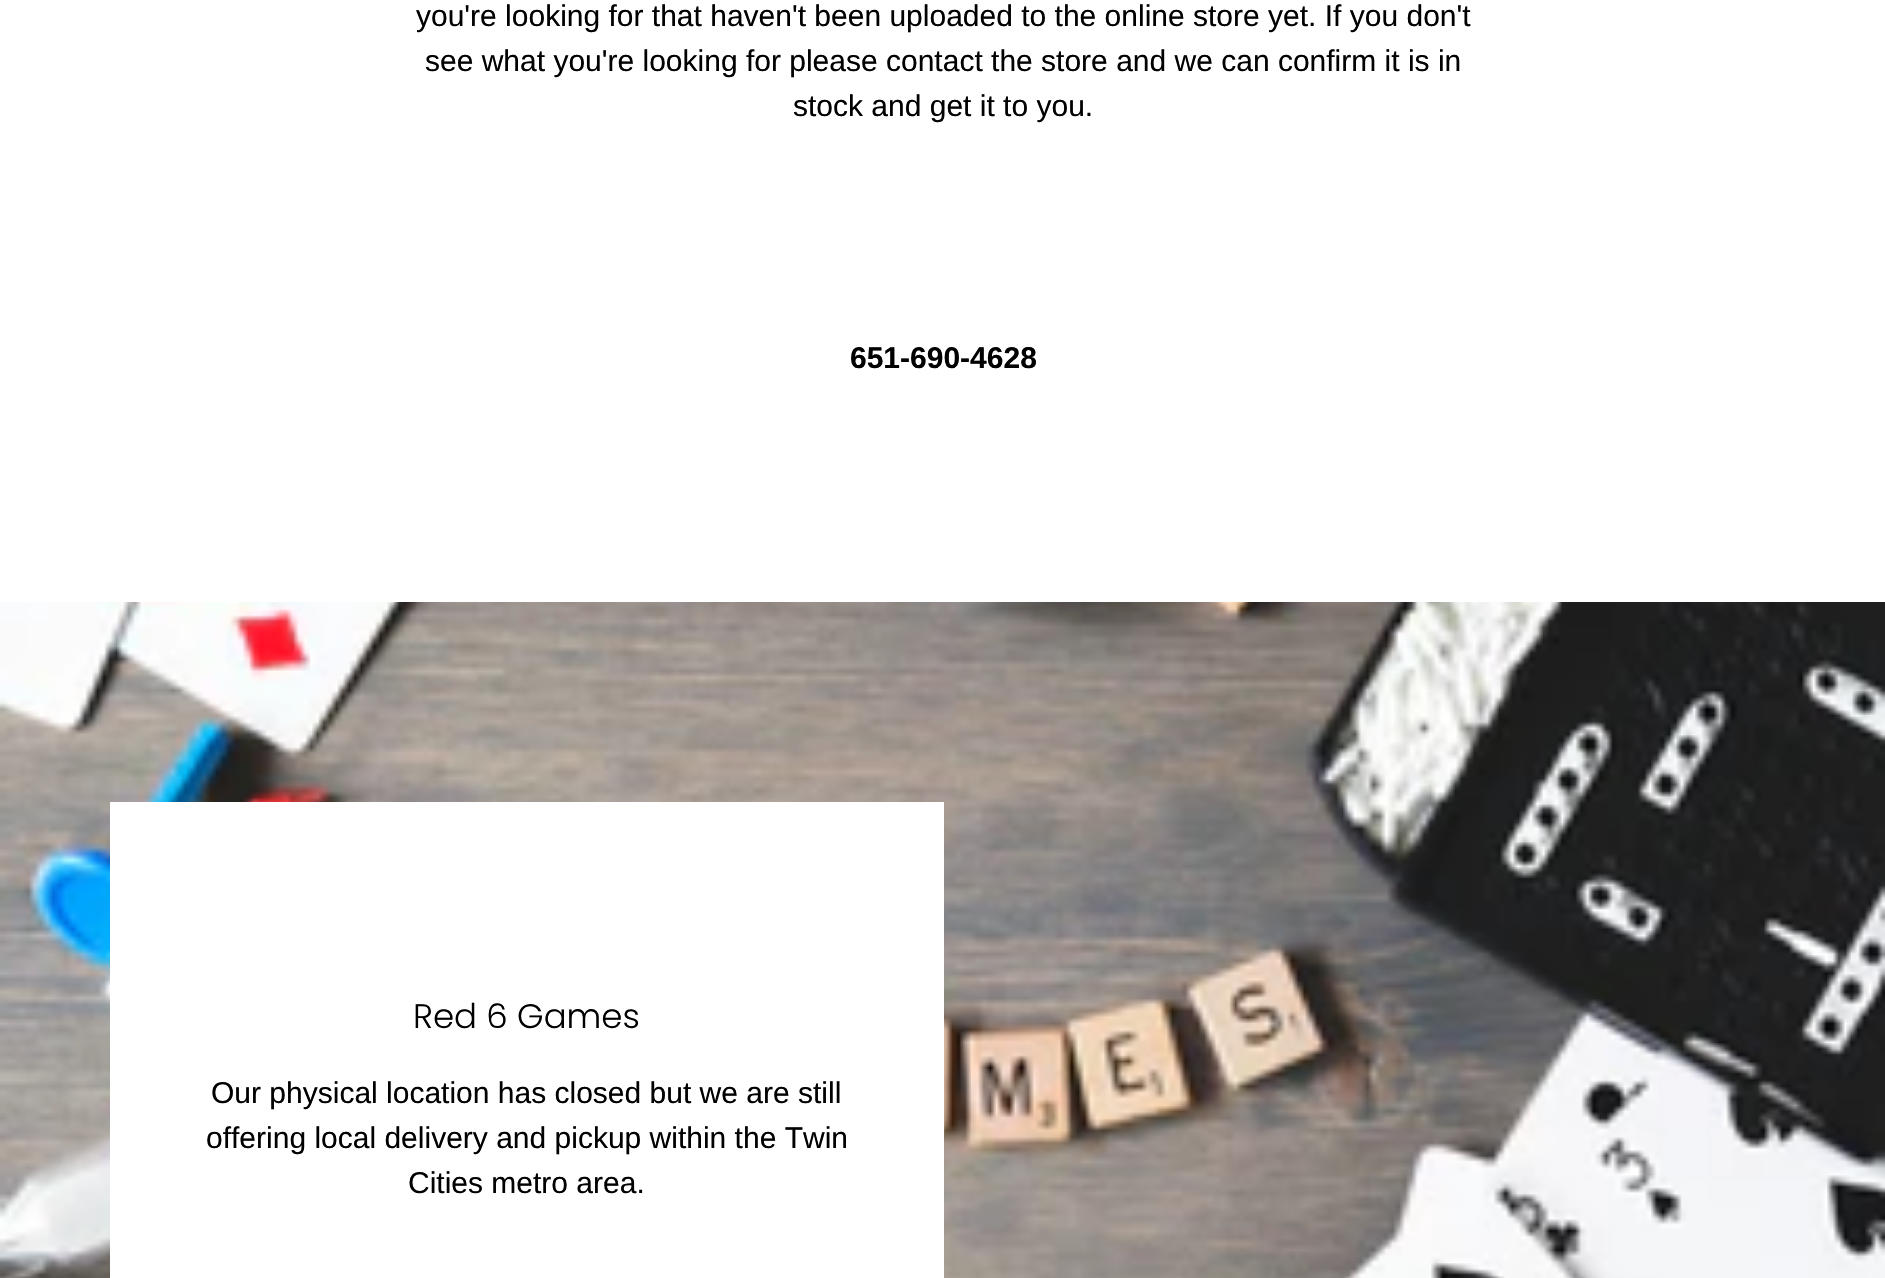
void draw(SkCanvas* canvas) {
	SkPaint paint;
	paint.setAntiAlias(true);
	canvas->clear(0xffffffff);
	SkFont f1(fontMgr->matchFamilyStyle("Liberation Sans", SkFontStyle::Normal()), 30);
	f1.setSubpixel(true);
	paint.setColor(0xff000000);
	canvas->drawString("you're looking for that haven't been uploaded to the online store yet. If you don't", 416, 26, f1, paint);
	canvas->drawString("see what you're looking for please contact the store and we can confirm it is in", 425, 71, f1, paint);
	canvas->drawString("stock and get it to you.", 793, 116, f1, paint);
	SkFont f2(fontMgr->matchFamilyStyle("Liberation Sans", SkFontStyle::Bold()), 30);
	f2.setSubpixel(true);
	canvas->drawString("651-690-4628", 850, 368, f2, paint);
	canvas->drawImageRect(SkImages::DeferredFromEncodedData(SkData::MakeFromFileName("img1.png")), SkRect::MakeXYWH(0, 602, 1885, 676), SkSamplingOptions());
	paint.setColor(0xffffffff);
	canvas->drawRect(SkRect::MakeXYWH(110, 802, 834, 476), paint);
	SkFont f3(fontMgr->matchFamilyStyle("Poppins", SkFontStyle(300, SkFontStyle::kNormal_Width, SkFontStyle::kUpright_Slant)), 34);
	f3.setSubpixel(true);
	paint.setColor(0xff000000);
	canvas->drawString("Red 6 Games", 413, 1028, f3, paint);
	canvas->drawString("Our physical location has closed but we are still", 211, 1103, f1, paint);
	canvas->drawString("offering local delivery and pickup within the Twin", 206, 1148, f1, paint);
	canvas->drawString("Cities metro area.", 408, 1193, f1, paint);
}
